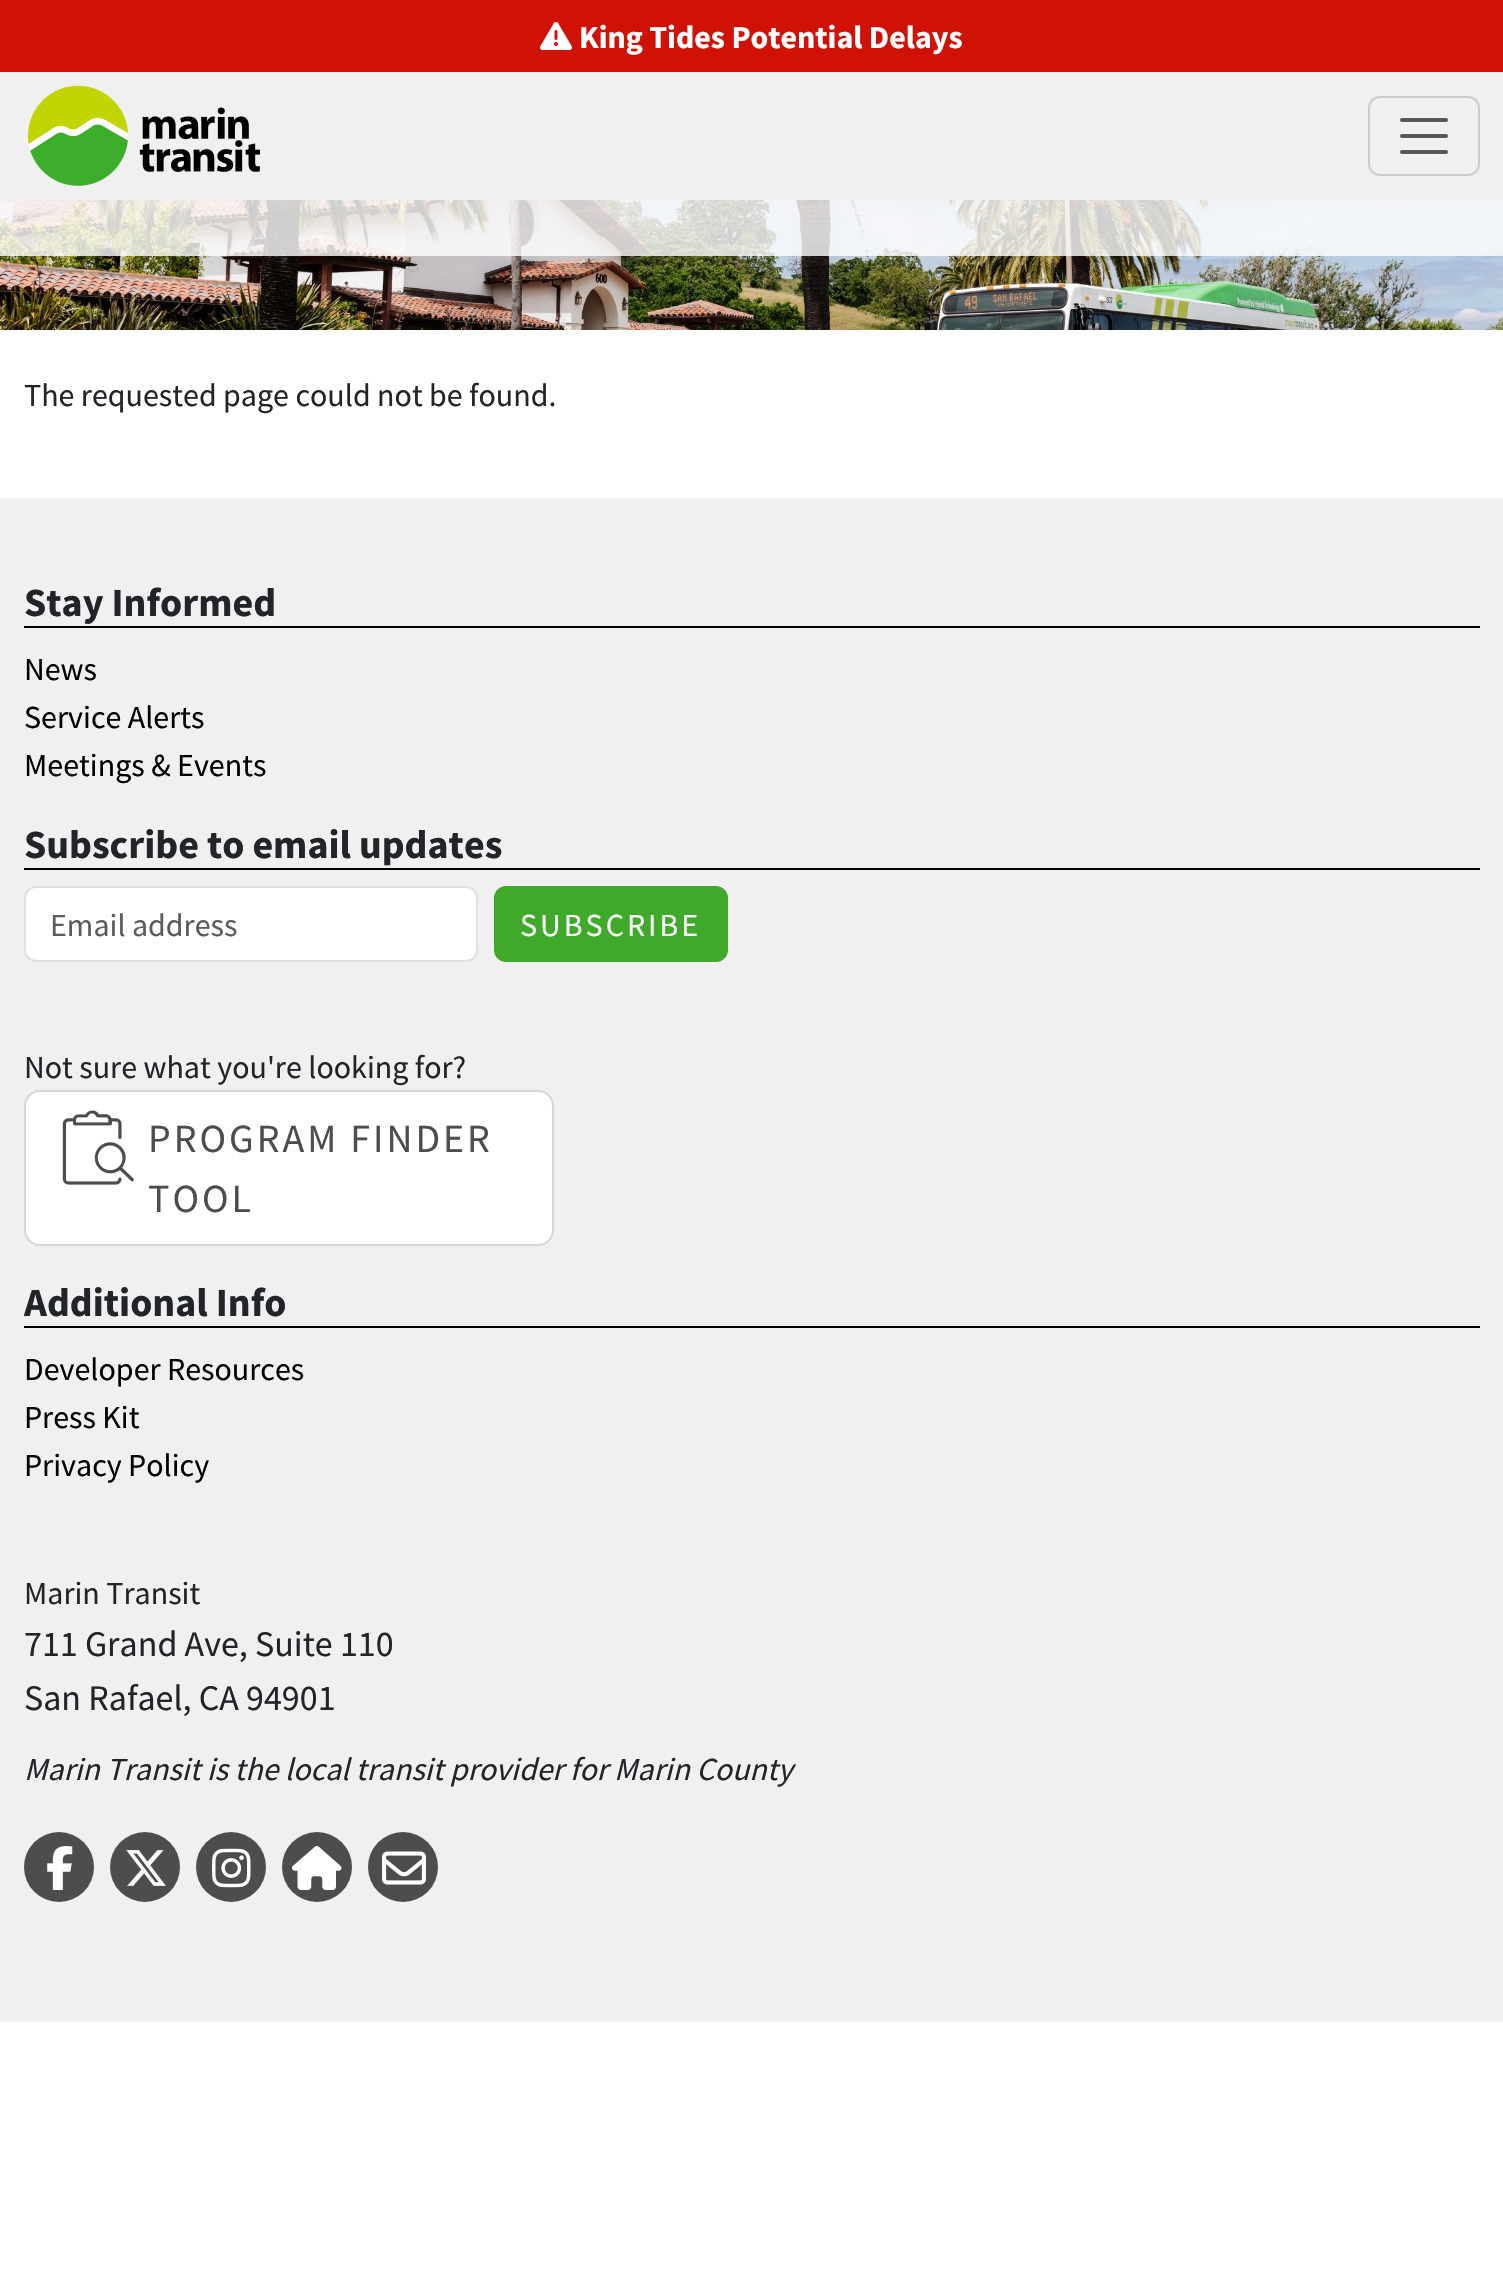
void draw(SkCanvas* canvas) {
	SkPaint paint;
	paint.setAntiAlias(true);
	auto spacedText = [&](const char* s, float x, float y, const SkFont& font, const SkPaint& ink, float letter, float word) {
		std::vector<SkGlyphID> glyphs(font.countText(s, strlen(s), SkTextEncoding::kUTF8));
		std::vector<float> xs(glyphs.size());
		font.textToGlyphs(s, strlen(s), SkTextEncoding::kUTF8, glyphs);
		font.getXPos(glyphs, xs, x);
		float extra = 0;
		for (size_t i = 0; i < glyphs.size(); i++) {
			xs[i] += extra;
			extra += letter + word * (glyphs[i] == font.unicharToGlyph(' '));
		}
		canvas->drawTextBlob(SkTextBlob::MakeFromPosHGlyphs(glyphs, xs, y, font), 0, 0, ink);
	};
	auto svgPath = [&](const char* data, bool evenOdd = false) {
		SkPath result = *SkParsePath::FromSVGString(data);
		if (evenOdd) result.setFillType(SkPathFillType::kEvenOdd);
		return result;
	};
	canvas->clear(0xffffffff);
	paint.setColor(0xfff0f0f0);
	canvas->drawRect(SkRect::MakeXYWH(0, 72, 1503, 128), paint);
	paint.setColor(0xffd01105);
	canvas->drawRect(SkRect::MakeXYWH(0, 0, 1503, 72), paint);
	canvas->drawImageRect(SkImages::DeferredFromEncodedData(SkData::MakeFromFileName("img1.png")), SkRect::MakeXYWH(540, 22, 32, 28), SkSamplingOptions());
	SkFont f1(fontMgr->matchFamilyStyle("Source Sans Pro", SkFontStyle::Bold()), 32);
	f1.setSubpixel(true);
	paint.setColor(0xffffffff);
	canvas->drawString("King Tides Potential Delays", 579, 48, f1, paint);
	canvas->drawImageRect(SkImages::DeferredFromEncodedData(SkData::MakeFromFileName("img2.png")), SkRect::MakeXYWH(28, 85, 232, 101), SkSamplingOptions());
	paint.setStroke(true);
	paint.setStrokeWidth(2);
	paint.setColor(0xffcccccc);
	canvas->drawRoundRect(SkRect::MakeXYWH(1369, 97, 110, 78), 11, 11, paint);
	paint.setStrokeWidth(4);
	paint.setStrokeCap(SkPaint::kRound_Cap);
	paint.setColor(0xff55585b);
	canvas->drawPath(svgPath("M1402 120H1446M1402 136H1446M1402 152H1446"), paint);
	canvas->drawImageRect(SkImages::DeferredFromEncodedData(SkData::MakeFromFileName("img3.png")), SkRect::MakeXYWH(0, 200, 1503, 130), SkSamplingOptions());
	paint.setStroke(false);
	paint.setColor(0xccffffff);
	canvas->drawRect(SkRect::MakeXYWH(0, 200, 1503, 56), paint);
	SkFont f2(fontMgr->matchFamilyStyle("Source Sans Pro", SkFontStyle::Normal()), 32);
	f2.setSubpixel(true);
	paint.setColor(0xff212529);
	canvas->drawString("The requested page could not be found.", 24, 406, f2, paint);
	paint.setColor(0xfff0f0f0);
	canvas->drawRect(SkRect::MakeXYWH(0, 498, 1503, 1524), paint);
	paint.setColor(0xff000000);
	canvas->drawRect(SkRect::MakeXYWH(24, 626, 1456, 2), paint);
	SkFont f3(fontMgr->matchFamilyStyle("Source Sans Pro", SkFontStyle::Bold()), 40);
	f3.setSubpixel(true);
	paint.setColor(0xff212529);
	canvas->drawString("Stay Informed", 24, 616, f3, paint);
	paint.setColor(0xff000000);
	canvas->drawString("News", 24, 680, f2, paint);
	canvas->drawString("Service Alerts", 24, 728, f2, paint);
	canvas->drawString("Meetings & Events", 24, 776, f2, paint);
	canvas->drawRect(SkRect::MakeXYWH(24, 868, 1456, 2), paint);
	paint.setColor(0xff212529);
	canvas->drawString("Subscribe to email updates", 24, 858, f3, paint);
	paint.setColor(0xffffffff);
	canvas->drawRoundRect(SkRect::MakeXYWH(25, 887, 452, 74), 11, 11, paint);
	paint.setStroke(true);
	paint.setStrokeWidth(2);
	paint.setStrokeCap(SkPaint::kButt_Cap);
	paint.setColor(0xffdee2e6);
	canvas->drawRoundRect(SkRect::MakeXYWH(25, 887, 452, 74), 11, 11, paint);
	paint.setStroke(false);
	paint.setColor(0xff595c5f);
	canvas->drawString("Email address", 50, 936, f2, paint);
	paint.setColor(0xff3fa92a);
	canvas->drawRoundRect(SkRect::MakeXYWH(495, 887, 232, 74), 11, 11, paint);
	paint.setStroke(true);
	canvas->drawRoundRect(SkRect::MakeXYWH(495, 887, 232, 74), 11, 11, paint);
	paint.setStroke(false);
	paint.setColor(0xffffffff);
	spacedText("SUBSCRIBE", 520, 936, f2, paint, 3, 0);
	paint.setColor(0xff212529);
	canvas->drawString("Not sure what you're looking for?", 24, 1078, f2, paint);
	paint.setColor(0xffffffff);
	canvas->drawRoundRect(SkRect::MakeXYWH(25, 1091, 528, 154), 15, 15, paint);
	paint.setStroke(true);
	paint.setColor(0xffd6d6d6);
	canvas->drawRoundRect(SkRect::MakeXYWH(25, 1091, 528, 154), 15, 15, paint);
	canvas->drawImageRect(SkImages::DeferredFromEncodedData(SkData::MakeFromFileName("img4.png")), SkRect::MakeXYWH(62, 1110, 72, 75), SkSamplingOptions());
	SkFont f4(fontMgr->matchFamilyStyle("Source Sans Pro", SkFontStyle::Normal()), 40);
	f4.setSubpixel(true);
	paint.setStroke(false);
	paint.setColor(0xff4d4d4d);
	spacedText("PROGRAM FINDER", 148, 1152, f4, paint, 3, 0);
	spacedText("TOOL", 148, 1212, f4, paint, 3, 0);
	paint.setColor(0xff000000);
	canvas->drawRect(SkRect::MakeXYWH(24, 1326, 1456, 2), paint);
	paint.setColor(0xff212529);
	canvas->drawString("Additional Info", 24, 1316, f3, paint);
	paint.setColor(0xff000000);
	canvas->drawString("Developer Resources", 24, 1380, f2, paint);
	canvas->drawString("Press Kit", 24, 1428, f2, paint);
	canvas->drawString("Privacy Policy", 24, 1476, f2, paint);
	paint.setColor(0xff212529);
	canvas->drawString("Marin Transit", 24, 1604, f2, paint);
	SkFont f5(fontMgr->matchFamilyStyle("Source Sans Pro", SkFontStyle::Normal()), 36);
	f5.setSubpixel(true);
	canvas->drawString("711 Grand Ave, Suite 110", 24, 1656, f5, paint);
	canvas->drawString("San Rafael, CA 94901", 24, 1710, f5, paint);
	SkFont f6(fontMgr->matchFamilyStyle("Source Sans Pro", SkFontStyle::Italic()), 32);
	f6.setSubpixel(true);
	canvas->drawString("Marin Transit is the local transit provider for Marin County", 24, 1780, f6, paint);
	paint.setColor(0xff4d4d4d);
	canvas->drawCircle(59, 1867, 35, paint);
	canvas->drawImageRect(SkImages::DeferredFromEncodedData(SkData::MakeFromFileName("img5.png")), SkRect::MakeXYWH(47, 1846, 26, 44), SkSamplingOptions());
	canvas->drawCircle(145, 1867, 35, paint);
	canvas->drawImageRect(SkImages::DeferredFromEncodedData(SkData::MakeFromFileName("img6.png")), SkRect::MakeXYWH(126, 1850, 40, 36), SkSamplingOptions());
	canvas->drawCircle(231, 1867, 35, paint);
	canvas->drawImageRect(SkImages::DeferredFromEncodedData(SkData::MakeFromFileName("img7.png")), SkRect::MakeXYWH(212, 1848, 39, 40), SkSamplingOptions());
	canvas->drawCircle(317, 1867, 35, paint);
	canvas->drawImageRect(SkImages::DeferredFromEncodedData(SkData::MakeFromFileName("img8.png")), SkRect::MakeXYWH(292, 1846, 50, 44), SkSamplingOptions());
	canvas->drawCircle(403, 1867, 35, paint);
	canvas->drawImageRect(SkImages::DeferredFromEncodedData(SkData::MakeFromFileName("img9.png")), SkRect::MakeXYWH(382, 1851, 44, 34), SkSamplingOptions());
}
